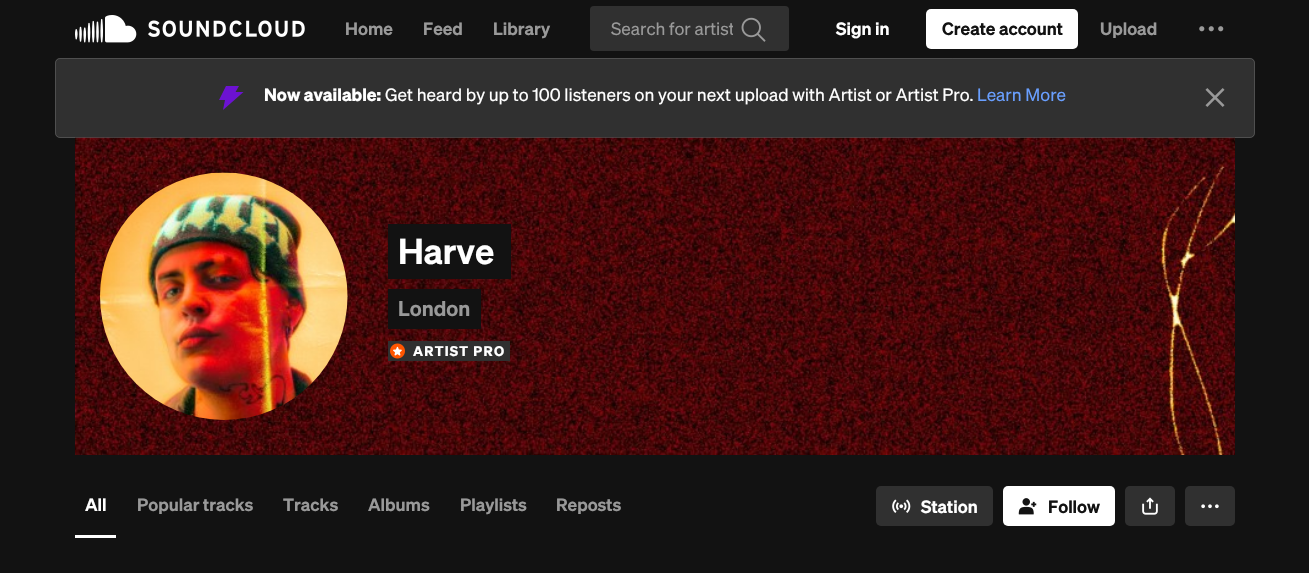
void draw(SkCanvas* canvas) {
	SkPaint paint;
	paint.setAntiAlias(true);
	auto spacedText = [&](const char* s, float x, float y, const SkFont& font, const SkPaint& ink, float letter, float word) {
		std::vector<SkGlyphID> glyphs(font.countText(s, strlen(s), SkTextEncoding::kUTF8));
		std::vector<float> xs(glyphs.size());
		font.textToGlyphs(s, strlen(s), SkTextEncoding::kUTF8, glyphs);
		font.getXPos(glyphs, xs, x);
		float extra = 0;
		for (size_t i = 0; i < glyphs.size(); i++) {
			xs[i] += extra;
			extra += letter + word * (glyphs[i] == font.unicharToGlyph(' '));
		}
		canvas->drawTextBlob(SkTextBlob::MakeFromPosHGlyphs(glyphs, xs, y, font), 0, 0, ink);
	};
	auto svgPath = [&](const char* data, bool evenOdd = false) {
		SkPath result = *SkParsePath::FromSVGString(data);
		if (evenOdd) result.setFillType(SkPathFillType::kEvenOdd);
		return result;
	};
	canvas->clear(0xff121212);
	canvas->drawImageRect(SkImages::DeferredFromEncodedData(SkData::MakeFromFileName("img1.png")), SkRect::MakeXYWH(75, 15, 230, 28), SkSamplingOptions());
	SkFont f1(fontMgr->matchFamilyStyle("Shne", SkFontStyle(600, SkFontStyle::kNormal_Width, SkFontStyle::kUpright_Slant)), 17.5);
	f1.setSubpixel(true);
	paint.setColor(0xff999999);
	canvas->drawString("Home", 345, 35, f1, paint);
	canvas->drawString("Feed", 423, 35, f1, paint);
	canvas->drawString("Library", 493, 35, f1, paint);
	paint.setColor(0xff303030);
	canvas->drawRoundRect(SkRect::MakeXYWH(590, 6, 199, 45), 4, 4, paint);
	canvas->save();
	canvas->clipRect(SkRect::MakeXYWH(611, 15, 122, 28));
	SkFont f2(fontMgr->matchFamilyStyle("Shne", SkFontStyle::Normal()), 17.5);
	f2.setSubpixel(true);
	paint.setColor(0xff999999);
	canvas->drawString("Search for artist", 611, 35, f2, paint);
	canvas->restore();
	canvas->drawImageRect(SkImages::DeferredFromEncodedData(SkData::MakeFromFileName("img2.png")), SkRect::MakeXYWH(741, 17, 25, 25), SkSamplingOptions());
	paint.setColor(0xffffffff);
	canvas->drawString("Sign in", 836, 35, f1, paint);
	canvas->drawRoundRect(SkRect::MakeXYWH(926, 9, 152, 40), 5, 5, paint);
	paint.setColor(0xff121212);
	canvas->drawString("Create account", 942, 35, f1, paint);
	paint.setColor(0xff999999);
	canvas->drawString("Upload", 1100, 35, f1, paint);
	canvas->drawImageRect(SkImages::DeferredFromEncodedData(SkData::MakeFromFileName("img3.png")), SkRect::MakeXYWH(1199, 26, 25, 6), SkSamplingOptions());
	paint.setColor(0xff303030);
	canvas->drawRoundRect(SkRect::MakeXYWH(55, 58, 1200, 80), 5, 5, paint);
	paint.setStroke(true);
	paint.setStrokeWidth(1);
	paint.setColor(0x26ffffff);
	canvas->drawRoundRect(SkRect::MakeXYWH(55.5, 58.5, 1199, 79), 4.5, 4.5, paint);
	paint.setStroke(false);
	paint.setColor(0xff6c12d2);
	canvas->drawPath(svgPath("M226 86L219 100H225L223 110L243.5 92H235.5L239 86Z"), paint);
	SkFont f3(fontMgr->matchFamilyStyle("Shne", SkFontStyle::Bold()), 17.5);
	f3.setSubpixel(true);
	paint.setColor(0xffffffff);
	canvas->drawString("Now available:", 264, 101, f3, paint);
	canvas->drawString("Get heard by up to 100 listeners on your next upload with Artist or Artist Pro.", 385, 101, f2, paint);
	paint.setColor(0xff699fff);
	canvas->drawString("Learn More", 977, 101, f2, paint);
	canvas->drawImageRect(SkImages::DeferredFromEncodedData(SkData::MakeFromFileName("img4.png")), SkRect::MakeXYWH(1205, 88, 20, 19), SkSamplingOptions());
	canvas->drawImageRect(SkImages::DeferredFromEncodedData(SkData::MakeFromFileName("img5.png")), SkRect::MakeXYWH(75, 137, 1160, 318), SkSamplingOptions());
	canvas->drawImageRect(SkImages::DeferredFromEncodedData(SkData::MakeFromFileName("img6.png")), SkRect::MakeXYWH(100, 172, 248, 248), SkSamplingOptions());
	paint.setColor(0xff121212);
	canvas->drawRect(SkRect::MakeXYWH(388, 224, 123, 55), paint);
	SkFont f4(fontMgr->matchFamilyStyle("Shne", SkFontStyle(600, SkFontStyle::kNormal_Width, SkFontStyle::kUpright_Slant)), 35);
	f4.setSubpixel(true);
	paint.setColor(0xffffffff);
	canvas->drawString("Harve", 398, 264, f4, paint);
	paint.setColor(0xff121212);
	canvas->drawRect(SkRect::MakeXYWH(388, 289, 93, 40), paint);
	SkFont f5(fontMgr->matchFamilyStyle("Shne", SkFontStyle(600, SkFontStyle::kNormal_Width, SkFontStyle::kUpright_Slant)), 21);
	f5.setSubpixel(true);
	paint.setColor(0xff999999);
	canvas->drawString("London", 398, 316, f5, paint);
	paint.setColor(0xff303030);
	canvas->drawRect(SkRect::MakeXYWH(388, 341, 122, 20), paint);
	canvas->drawImageRect(SkImages::DeferredFromEncodedData(SkData::MakeFromFileName("img7.png")), SkRect::MakeXYWH(390, 343, 15, 16), SkSamplingOptions());
	SkFont f6(fontMgr->matchFamilyStyle("Shne", SkFontStyle::Bold()), 13.75);
	f6.setSubpixel(true);
	paint.setColor(0xffffffff);
	spacedText("ARTIST PRO", 413, 356, f6, paint, 1.25, 0);
	canvas->drawRect(SkRect::MakeXYWH(75, 535, 41, 3), paint);
	canvas->drawString("All", 85, 511, f1, paint);
	paint.setColor(0xff999999);
	canvas->drawString("Popular tracks", 137, 511, f1, paint);
	canvas->drawString("Tracks", 283, 511, f1, paint);
	canvas->drawString("Albums", 368, 511, f1, paint);
	canvas->drawString("Playlists", 460, 511, f1, paint);
	canvas->drawString("Reposts", 556, 511, f1, paint);
	paint.setColor(0xff303030);
	canvas->drawRoundRect(SkRect::MakeXYWH(876, 486, 117, 40), 5, 5, paint);
	canvas->drawImageRect(SkImages::DeferredFromEncodedData(SkData::MakeFromFileName("img8.png")), SkRect::MakeXYWH(892, 499, 19, 14), SkSamplingOptions());
	paint.setColor(0xffffffff);
	canvas->drawString("Station", 921, 513, f1, paint);
	canvas->drawRoundRect(SkRect::MakeXYWH(1003, 486, 112, 40), 5, 5, paint);
	canvas->drawImageRect(SkImages::DeferredFromEncodedData(SkData::MakeFromFileName("img9.png")), SkRect::MakeXYWH(1018, 498, 19, 17), SkSamplingOptions());
	paint.setColor(0xff121212);
	canvas->drawString("Follow", 1048, 513, f1, paint);
	paint.setColor(0xff303030);
	canvas->drawRoundRect(SkRect::MakeXYWH(1125, 486, 50, 40), 5, 5, paint);
	canvas->drawImageRect(SkImages::DeferredFromEncodedData(SkData::MakeFromFileName("img10.png")), SkRect::MakeXYWH(1142, 497, 16, 18), SkSamplingOptions());
	canvas->drawRoundRect(SkRect::MakeXYWH(1185, 486, 50, 40), 5, 5, paint);
	canvas->drawImageRect(SkImages::DeferredFromEncodedData(SkData::MakeFromFileName("img11.png")), SkRect::MakeXYWH(1201, 504, 18, 5), SkSamplingOptions());
}
